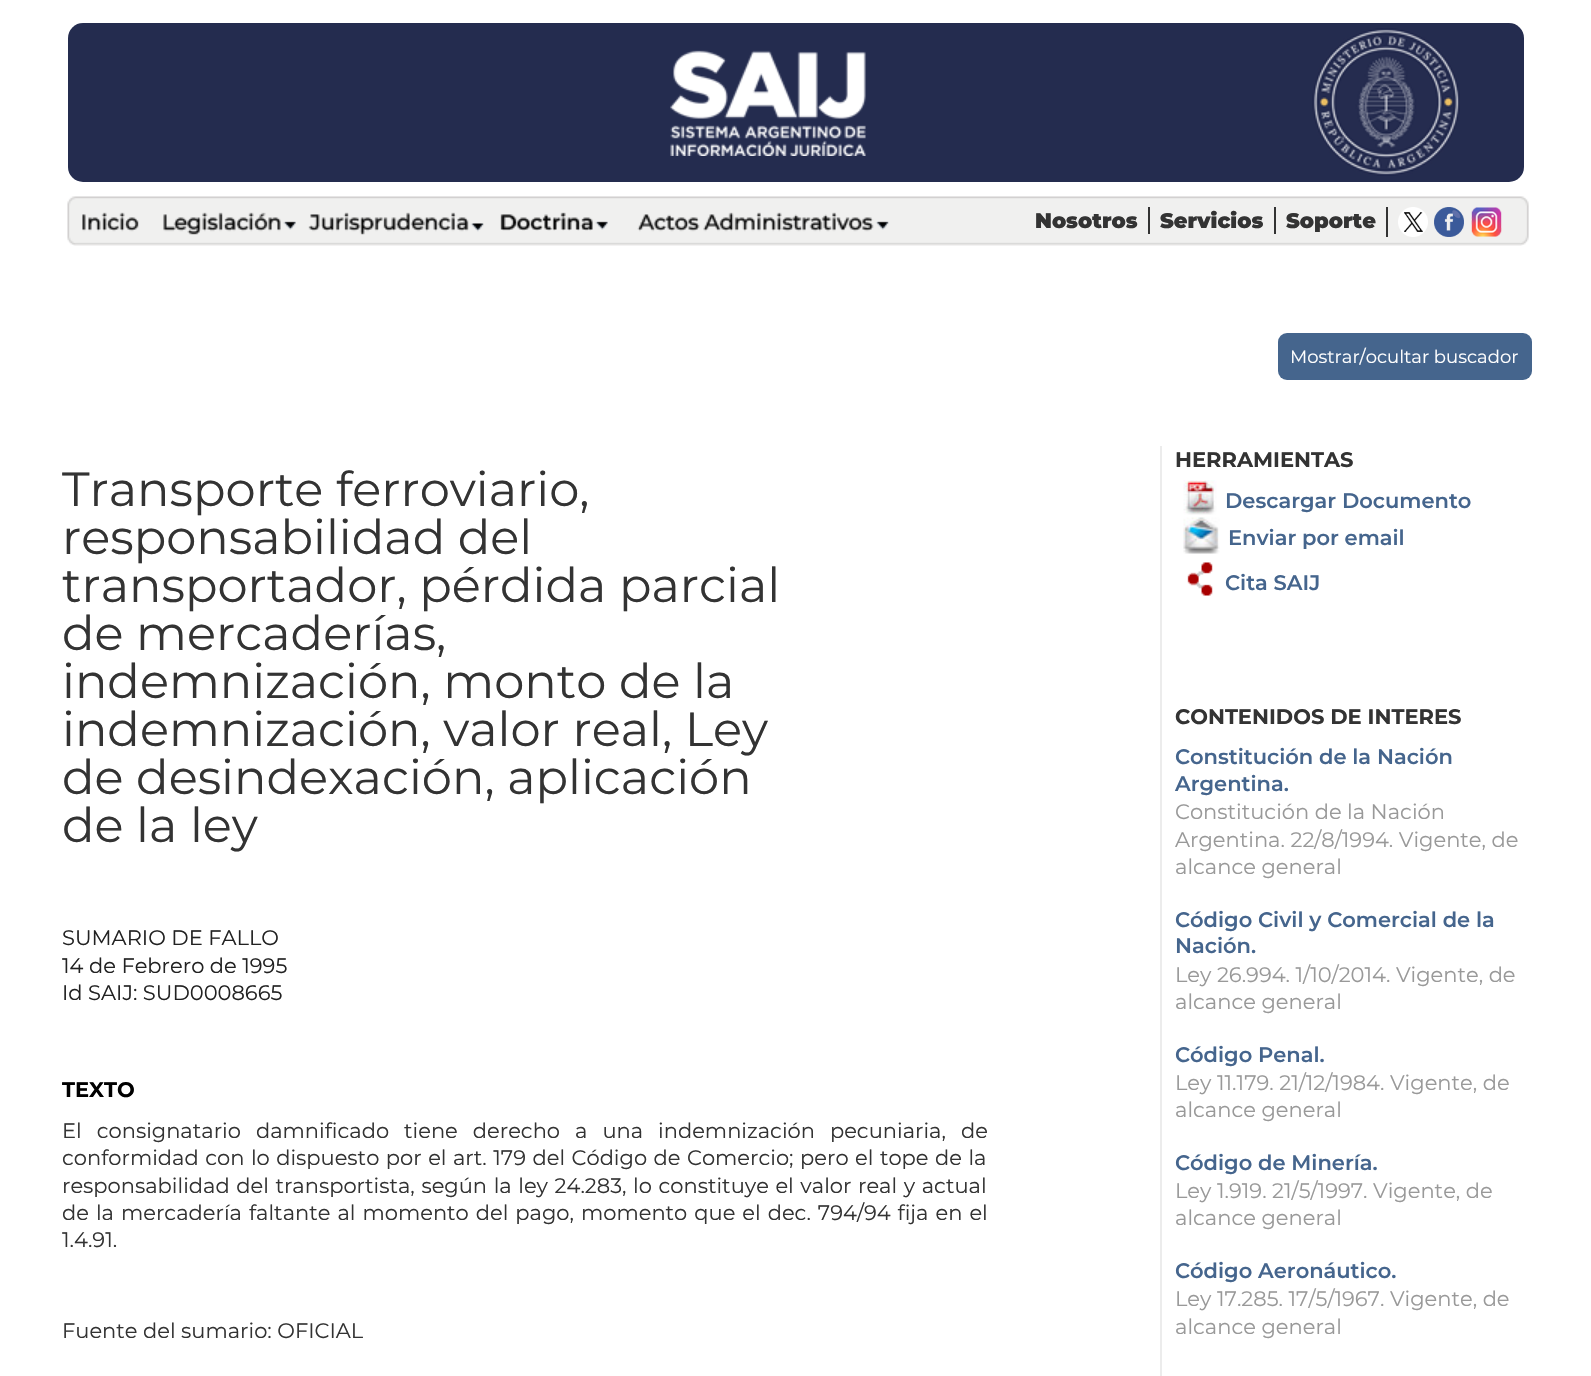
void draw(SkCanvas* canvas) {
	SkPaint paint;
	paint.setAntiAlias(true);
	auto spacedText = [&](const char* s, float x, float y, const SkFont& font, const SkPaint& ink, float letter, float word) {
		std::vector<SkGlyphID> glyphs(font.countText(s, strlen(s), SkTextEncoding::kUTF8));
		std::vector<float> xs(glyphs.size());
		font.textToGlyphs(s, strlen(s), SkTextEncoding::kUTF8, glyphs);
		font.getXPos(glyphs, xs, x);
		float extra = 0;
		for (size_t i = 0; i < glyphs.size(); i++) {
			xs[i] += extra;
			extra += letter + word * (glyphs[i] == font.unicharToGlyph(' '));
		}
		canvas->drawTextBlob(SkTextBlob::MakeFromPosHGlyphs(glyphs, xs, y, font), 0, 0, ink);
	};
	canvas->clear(0xffffffff);
	paint.setColor(0xff242c4f);
	canvas->drawRoundRect(SkRect::MakeXYWH(68, 23, 1456, 159), 15, 15, paint);
	canvas->drawImageRect(SkImages::DeferredFromEncodedData(SkData::MakeFromFileName("img1.png")), SkRect::MakeXYWH(670, 50, 196, 106), SkSamplingOptions());
	canvas->drawImageRect(SkImages::DeferredFromEncodedData(SkData::MakeFromFileName("img2.png")), SkRect::MakeXYWH(1312, 28, 148, 148), SkSamplingOptions());
	canvas->drawImageRect(SkImages::DeferredFromEncodedData(SkData::MakeFromFileName("img3.png")), SkRect::MakeXYWH(67, 196, 1462, 50), SkSamplingOptions());
	canvas->drawImageRect(SkImages::DeferredFromEncodedData(SkData::MakeFromFileName("img4.png")), SkRect::MakeXYWH(82, 212, 57, 20), SkSamplingOptions());
	canvas->drawImageRect(SkImages::DeferredFromEncodedData(SkData::MakeFromFileName("img5.png")), SkRect::MakeXYWH(163, 212, 133, 23), SkSamplingOptions());
	canvas->drawImageRect(SkImages::DeferredFromEncodedData(SkData::MakeFromFileName("img6.png")), SkRect::MakeXYWH(308, 212, 176, 23), SkSamplingOptions());
	canvas->drawImageRect(SkImages::DeferredFromEncodedData(SkData::MakeFromFileName("img7.png")), SkRect::MakeXYWH(500, 212, 108, 19), SkSamplingOptions());
	canvas->drawImageRect(SkImages::DeferredFromEncodedData(SkData::MakeFromFileName("img8.png")), SkRect::MakeXYWH(637, 212, 252, 20), SkSamplingOptions());
	SkFont f1(fontMgr->matchFamilyStyle("Montserrat", SkFontStyle(900, SkFontStyle::kNormal_Width, SkFontStyle::kUpright_Slant)), 21);
	f1.setSubpixel(true);
	paint.setColor(0xff333333);
	canvas->drawString("Nosotros", 1035, 228, f1, paint);
	canvas->drawRect(SkRect::MakeXYWH(1148, 207, 2, 27), paint);
	canvas->drawString("Servicios", 1160, 228, f1, paint);
	canvas->drawRect(SkRect::MakeXYWH(1274, 207, 2, 27), paint);
	canvas->drawString("Soporte", 1286, 228, f1, paint);
	canvas->drawRect(SkRect::MakeXYWH(1386, 207, 2, 30), paint);
	canvas->drawImageRect(SkImages::DeferredFromEncodedData(SkData::MakeFromFileName("img9.png")), SkRect::MakeXYWH(1398, 207, 30, 30), SkSamplingOptions());
	canvas->drawImageRect(SkImages::DeferredFromEncodedData(SkData::MakeFromFileName("img10.png")), SkRect::MakeXYWH(1434, 207, 30, 30), SkSamplingOptions());
	canvas->drawImageRect(SkImages::DeferredFromEncodedData(SkData::MakeFromFileName("img11.png")), SkRect::MakeXYWH(1471, 207, 31, 30), SkSamplingOptions());
	paint.setColor(0xff45658d);
	canvas->drawRoundRect(SkRect::MakeXYWH(1278, 333, 254, 47), 9, 9, paint);
	SkFont f2(fontMgr->matchFamilyStyle("Montserrat", SkFontStyle::Normal()), 18);
	f2.setSubpixel(true);
	paint.setColor(0xffffffff);
	canvas->drawString("Mostrar/ocultar buscador", 1290, 363, f2, paint);
	SkFont f3(fontMgr->matchFamilyStyle("Montserrat", SkFontStyle::Normal()), 48);
	f3.setSubpixel(true);
	paint.setColor(0xff333333);
	canvas->drawString("Transporte ferroviario,", 62, 506, f3, paint);
	canvas->drawString("responsabilidad del", 62, 554, f3, paint);
	canvas->drawString("transportador, pérdida parcial", 62, 602, f3, paint);
	canvas->drawString("de mercaderías,", 62, 650, f3, paint);
	canvas->drawString("indemnización, monto de la", 62, 698, f3, paint);
	canvas->drawString("indemnización, valor real, Ley", 62, 746, f3, paint);
	canvas->drawString("de desindexación, aplicación", 62, 794, f3, paint);
	canvas->drawString("de la ley", 62, 842, f3, paint);
	SkFont f4(fontMgr->matchFamilyStyle("Montserrat", SkFontStyle::Normal()), 21);
	f4.setSubpixel(true);
	paint.setColor(0xff222222);
	canvas->drawString("SUMARIO DE FALLO", 62, 945, f4, paint);
	canvas->drawString("14 de Febrero de 1995", 62, 973, f4, paint);
	canvas->drawString("Id SAIJ: SUD0008665", 62, 1000, f4, paint);
	SkFont f5(fontMgr->matchFamilyStyle("Montserrat", SkFontStyle::Bold()), 21);
	f5.setSubpixel(true);
	paint.setColor(0xff000000);
	canvas->drawString("TEXTO", 62, 1097, f5, paint);
	paint.setColor(0xff333333);
	spacedText("El consignatario damnificado tiene derecho a una indemnización pecuniaria, de", 62, 1138, f4, paint, 0, 9.5);
	spacedText("conformidad con lo dispuesto por el art. 179 del Código de Comercio; pero el tope de la", 62, 1165, f4, paint, 0, 1);
	spacedText("responsabilidad del transportista, según la ley 24.283, lo constituye el valor real y actual", 62, 1193, f4, paint, 0, 1.1);
	spacedText("de la mercadería faltante al momento del pago, momento que el dec. 794/94 fija en el", 62, 1220, f4, paint, 0, 1.5);
	canvas->drawString("1.4.91.", 62, 1247, f4, paint);
	canvas->drawString("Fuente del sumario: OFICIAL", 62, 1338, f4, paint);
	paint.setColor(0xffececec);
	canvas->drawRect(SkRect::MakeXYWH(1160, 446, 2, 930), paint);
	paint.setColor(0xff333333);
	canvas->drawString("HERRAMIENTAS", 1175, 467, f5, paint);
	canvas->drawImageRect(SkImages::DeferredFromEncodedData(SkData::MakeFromFileName("img12.png")), SkRect::MakeXYWH(1183, 480, 34, 35), SkSamplingOptions());
	SkFont f6(fontMgr->matchFamilyStyle("Montserrat", SkFontStyle(600, SkFontStyle::kNormal_Width, SkFontStyle::kUpright_Slant)), 21);
	f6.setSubpixel(true);
	paint.setColor(0xff45658d);
	canvas->drawString("Descargar Documento", 1225, 508, f6, paint);
	canvas->drawImageRect(SkImages::DeferredFromEncodedData(SkData::MakeFromFileName("img13.png")), SkRect::MakeXYWH(1183, 517, 37, 37), SkSamplingOptions());
	canvas->drawString("Enviar por email", 1228, 545, f6, paint);
	canvas->drawImageRect(SkImages::DeferredFromEncodedData(SkData::MakeFromFileName("img14.png")), SkRect::MakeXYWH(1187, 562, 26, 34), SkSamplingOptions());
	canvas->drawString("Cita SAIJ", 1225, 590, f6, paint);
	paint.setColor(0xff333333);
	canvas->drawString("CONTENIDOS DE INTERES", 1175, 724, f5, paint);
	paint.setColor(0xff45658d);
	canvas->drawString("Constitución de la Nación", 1175, 764, f6, paint);
	canvas->drawString("Argentina.", 1175, 791, f6, paint);
	paint.setColor(0xff999999);
	canvas->drawString("Constitución de la Nación", 1175, 819, f4, paint);
	canvas->drawString("Argentina. 22/8/1994. Vigente, de", 1175, 847, f4, paint);
	canvas->drawString("alcance general", 1175, 874, f4, paint);
	paint.setColor(0xff45658d);
	canvas->drawString("Código Civil y Comercial de la", 1175, 927, f6, paint);
	canvas->drawString("Nación.", 1175, 953, f6, paint);
	paint.setColor(0xff999999);
	canvas->drawString("Ley 26.994. 1/10/2014. Vigente, de", 1175, 982, f4, paint);
	canvas->drawString("alcance general", 1175, 1009, f4, paint);
	paint.setColor(0xff45658d);
	canvas->drawString("Código Penal.", 1175, 1062, f6, paint);
	paint.setColor(0xff999999);
	canvas->drawString("Ley 11.179. 21/12/1984. Vigente, de", 1175, 1090, f4, paint);
	canvas->drawString("alcance general", 1175, 1117, f4, paint);
	paint.setColor(0xff45658d);
	canvas->drawString("Código de Minería.", 1175, 1170, f6, paint);
	paint.setColor(0xff999999);
	canvas->drawString("Ley 1.919. 21/5/1997. Vigente, de", 1175, 1198, f4, paint);
	canvas->drawString("alcance general", 1175, 1225, f4, paint);
	paint.setColor(0xff45658d);
	canvas->drawString("Código Aeronáutico.", 1175, 1278, f6, paint);
	paint.setColor(0xff999999);
	canvas->drawString("Ley 17.285. 17/5/1967. Vigente, de", 1175, 1306, f4, paint);
	canvas->drawString("alcance general", 1175, 1334, f4, paint);
}
